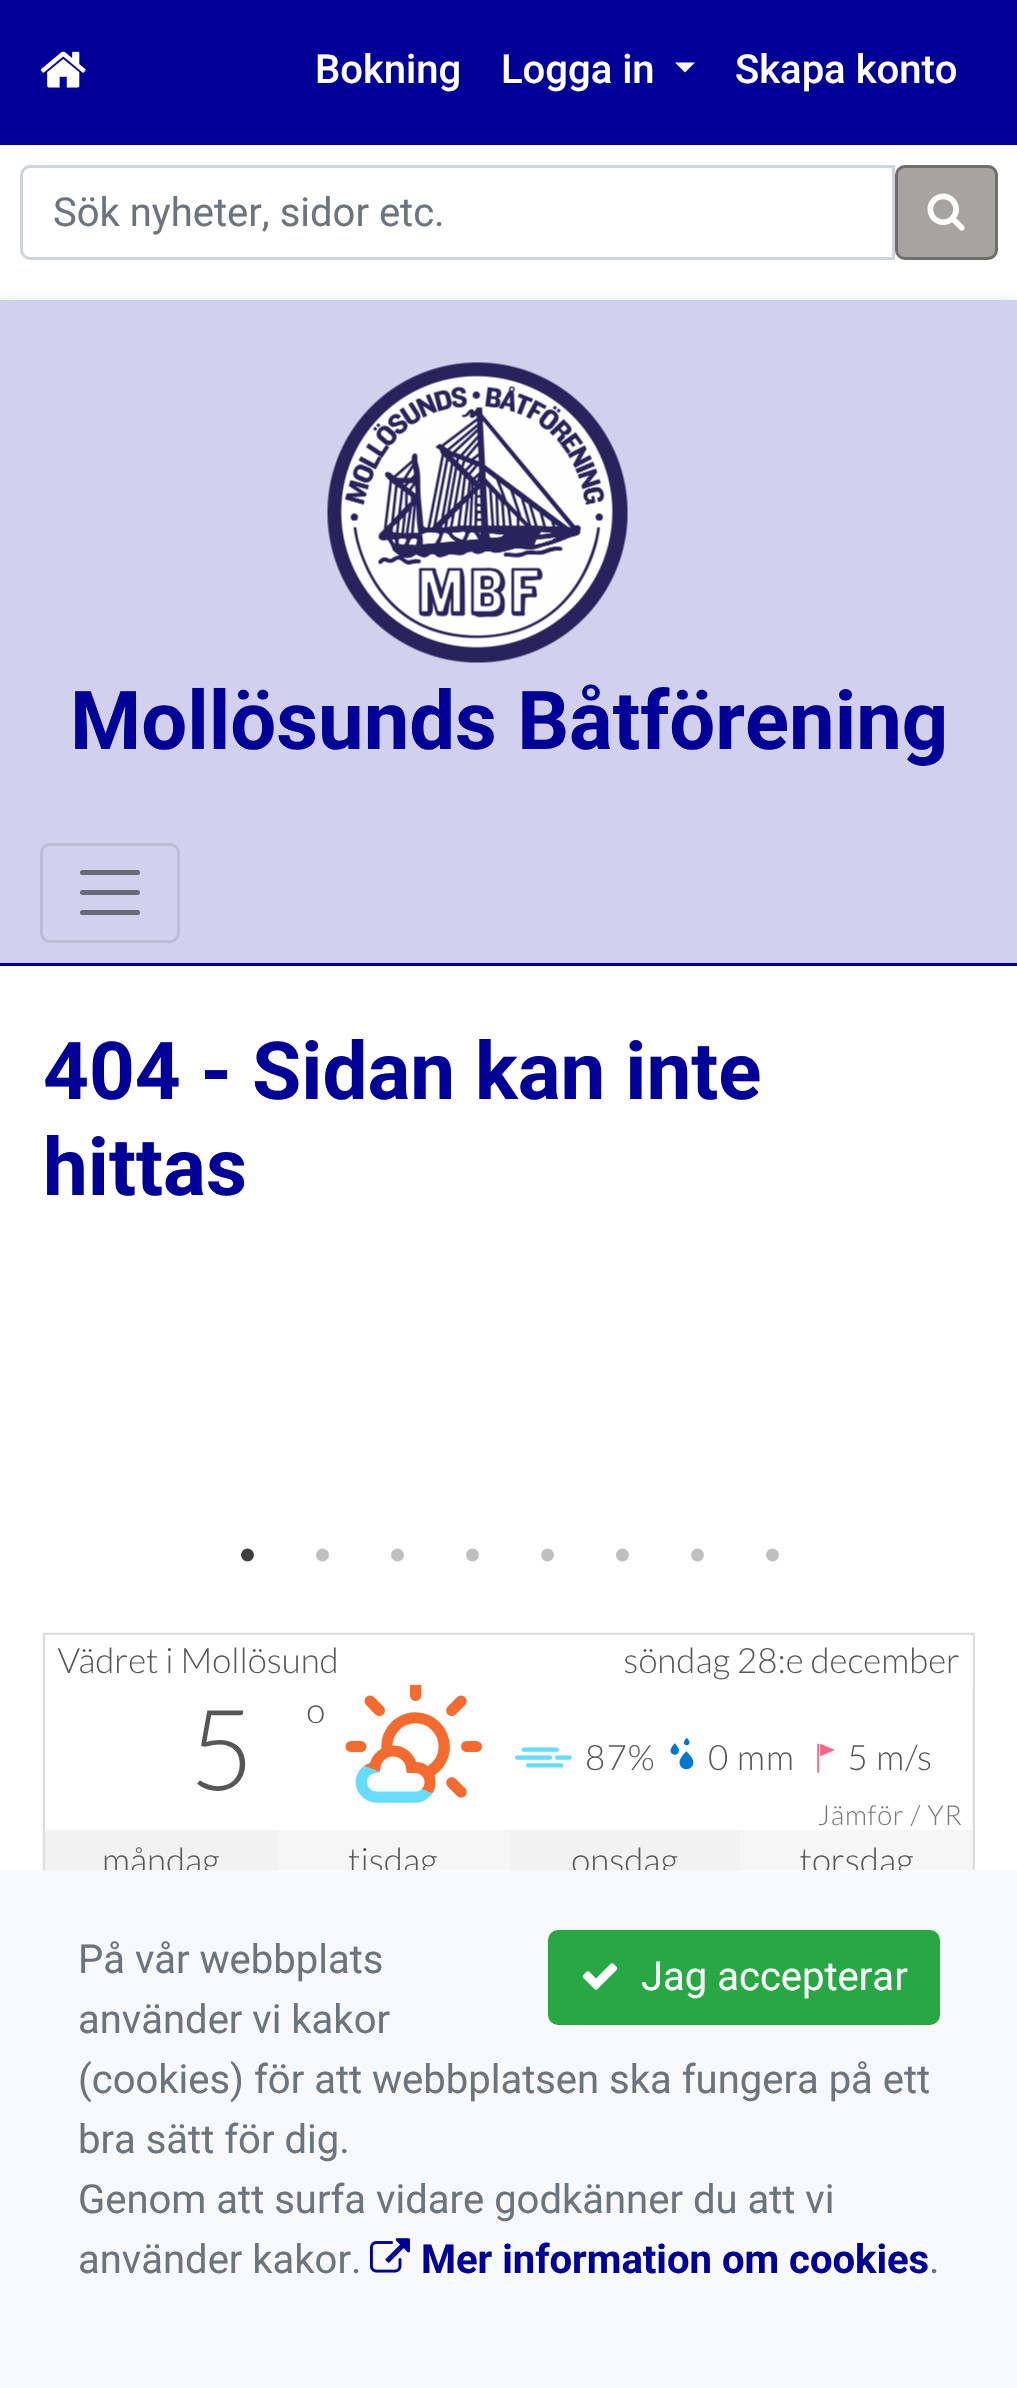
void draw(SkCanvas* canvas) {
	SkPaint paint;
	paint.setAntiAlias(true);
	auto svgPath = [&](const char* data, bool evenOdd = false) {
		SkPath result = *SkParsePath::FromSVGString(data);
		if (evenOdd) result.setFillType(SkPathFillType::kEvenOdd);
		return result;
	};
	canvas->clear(0xffffffff);
	paint.setColor(0xff000099);
	canvas->drawRect(SkRect::MakeXYWH(0, 0, 1017, 145), paint);
	canvas->drawImageRect(SkImages::DeferredFromEncodedData(SkData::MakeFromFileName("img1.png")), SkRect::MakeXYWH(40, 51, 46, 37), SkSamplingOptions());
	SkFont f1(fontMgr->matchFamilyStyle("Roboto", SkFontStyle(500, SkFontStyle::kNormal_Width, SkFontStyle::kUpright_Slant)), 40);
	f1.setSubpixel(true);
	paint.setColor(0xffffffff);
	canvas->drawString("Bokning", 315, 83, f1, paint);
	canvas->drawString("Logga in", 501, 83, f1, paint);
	canvas->drawPath(svgPath("M675 62.5H695L685 72.5Z"), paint);
	canvas->drawString("Skapa konto", 735, 83, f1, paint);
	paint.setStroke(true);
	paint.setStrokeWidth(3);
	paint.setColor(0xffced4da);
	canvas->drawPath(svgPath("M30 166.5H893.5V258.5H30C25.5 258.5 21.5 254.5 21.5 250V175C21.5 170.5 25.5 166.5 30 166.5Z"), paint);
	SkFont f2(fontMgr->matchFamilyStyle("Roboto", SkFontStyle::Normal()), 40);
	f2.setSubpixel(true);
	paint.setStroke(false);
	paint.setColor(0xff6c757d);
	canvas->drawString("Sök nyheter, sidor etc.", 53, 226, f2, paint);
	paint.setColor(0xffa5a4a2);
	canvas->drawRoundRect(SkRect::MakeXYWH(895, 165, 103, 95), 10, 10, paint);
	paint.setStroke(true);
	paint.setColor(0x661d1b17);
	canvas->drawRoundRect(SkRect::MakeXYWH(896.5, 166.5, 100, 92), 8.5, 8.5, paint);
	canvas->drawImageRect(SkImages::DeferredFromEncodedData(SkData::MakeFromFileName("img2.png")), SkRect::MakeXYWH(927, 193, 38, 38), SkSamplingOptions());
	paint.setStroke(false);
	paint.setColor(0x4d646464);
	paint.setMaskFilter(SkMaskFilter::MakeBlur(kNormal_SkBlurStyle, 7.5));
	canvas->drawRect(SkRect::MakeXYWH(0, 305, 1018, 523), paint);
	paint.setMaskFilter(nullptr);
	paint.setColor(0xffd1d1ee);
	canvas->drawRect(SkRect::MakeXYWH(0, 300, 1017, 663), paint);
	canvas->drawImageRect(SkImages::DeferredFromEncodedData(SkData::MakeFromFileName("img3.png")), SkRect::MakeXYWH(327, 362, 301, 301), SkSamplingOptions());
	SkFont f3(fontMgr->matchFamilyStyle("Roboto", SkFontStyle::Bold()), 81.4);
	f3.setSubpixel(true);
	paint.setColor(0xff000099);
	canvas->drawString("Mollösunds Båtförening", 70, 749, f3, paint);
	paint.setStroke(true);
	paint.setColor(0xffbcbcd6);
	canvas->drawRoundRect(SkRect::MakeXYWH(41.5, 844.5, 137, 97), 8.5, 8.5, paint);
	paint.setStrokeWidth(5);
	paint.setStrokeCap(SkPaint::kRound_Cap);
	paint.setColor(0xff696977);
	canvas->drawPath(svgPath("M82.5 872.5H137.5M82.5 892.5H137.5M82.5 912.5H137.5"), paint);
	paint.setStroke(false);
	paint.setColor(0xff000099);
	canvas->drawRect(SkRect::MakeXYWH(0, 963, 1017, 3), paint);
	SkFont f4(fontMgr->matchFamilyStyle("Roboto", SkFontStyle::Bold()), 80);
	f4.setSubpixel(true);
	canvas->drawString("404 - Sidan kan inte", 43, 1099, f4, paint);
	canvas->drawString("hittas", 43, 1195, f4, paint);
	canvas->drawImageRect(SkImages::DeferredFromEncodedData(SkData::MakeFromFileName("img4.png")), SkRect::MakeXYWH(241, 1548, 13, 14), SkSamplingOptions());
	canvas->drawImageRect(SkImages::DeferredFromEncodedData(SkData::MakeFromFileName("img5.png")), SkRect::MakeXYWH(316, 1548, 13, 14), SkSamplingOptions());
	canvas->drawImageRect(SkImages::DeferredFromEncodedData(SkData::MakeFromFileName("img5.png")), SkRect::MakeXYWH(391, 1548, 13, 14), SkSamplingOptions());
	canvas->drawImageRect(SkImages::DeferredFromEncodedData(SkData::MakeFromFileName("img5.png")), SkRect::MakeXYWH(466, 1548, 13, 14), SkSamplingOptions());
	canvas->drawImageRect(SkImages::DeferredFromEncodedData(SkData::MakeFromFileName("img5.png")), SkRect::MakeXYWH(541, 1548, 13, 14), SkSamplingOptions());
	canvas->drawImageRect(SkImages::DeferredFromEncodedData(SkData::MakeFromFileName("img5.png")), SkRect::MakeXYWH(616, 1548, 13, 14), SkSamplingOptions());
	canvas->drawImageRect(SkImages::DeferredFromEncodedData(SkData::MakeFromFileName("img5.png")), SkRect::MakeXYWH(691, 1548, 13, 14), SkSamplingOptions());
	canvas->drawImageRect(SkImages::DeferredFromEncodedData(SkData::MakeFromFileName("img5.png")), SkRect::MakeXYWH(766, 1548, 13, 14), SkSamplingOptions());
	canvas->drawImageRect(SkImages::DeferredFromEncodedData(SkData::MakeFromFileName("img6.png")), SkRect::MakeXYWH(42, 1632, 933, 238), SkSamplingOptions());
	paint.setColor(0xfff8f9fa);
	canvas->drawRect(SkRect::MakeXYWH(0, 1870, 1017, 518), paint);
	paint.setColor(0xff6c757d);
	canvas->drawString("På vår webbplats", 78, 1973, f2, paint);
	canvas->drawString("använder vi kakor", 78, 2033, f2, paint);
	canvas->drawString("(cookies) för att webbplatsen ska fungera på ett", 78, 2093, f2, paint);
	canvas->drawString("bra sätt för dig.", 78, 2153, f2, paint);
	canvas->drawString("Genom att surfa vidare godkänner du att vi", 78, 2213, f2, paint);
	canvas->drawString("använder kakor.", 78, 2273, f2, paint);
	canvas->drawImageRect(SkImages::DeferredFromEncodedData(SkData::MakeFromFileName("img7.png")), SkRect::MakeXYWH(370, 2238, 40, 35), SkSamplingOptions());
	SkFont f5(fontMgr->matchFamilyStyle("Roboto", SkFontStyle::Bold()), 40);
	f5.setSubpixel(true);
	paint.setColor(0xff000099);
	canvas->drawString("Mer information om cookies", 421, 2273, f5, paint);
	paint.setColor(0xff6c757d);
	canvas->drawString(".", 929, 2273, f2, paint);
	paint.setColor(0xff28a745);
	canvas->drawRoundRect(SkRect::MakeXYWH(549.5, 1931.5, 389, 92), 8.5, 8.5, paint);
	paint.setStroke(true);
	paint.setStrokeWidth(3);
	paint.setStrokeCap(SkPaint::kButt_Cap);
	canvas->drawRoundRect(SkRect::MakeXYWH(549.5, 1931.5, 389, 92), 8.5, 8.5, paint);
	canvas->drawImageRect(SkImages::DeferredFromEncodedData(SkData::MakeFromFileName("img8.png")), SkRect::MakeXYWH(582, 1963, 36, 27), SkSamplingOptions());
	paint.setStroke(false);
	paint.setColor(0xffffffff);
	canvas->drawString("Jag accepterar", 641, 1990, f2, paint);
}
